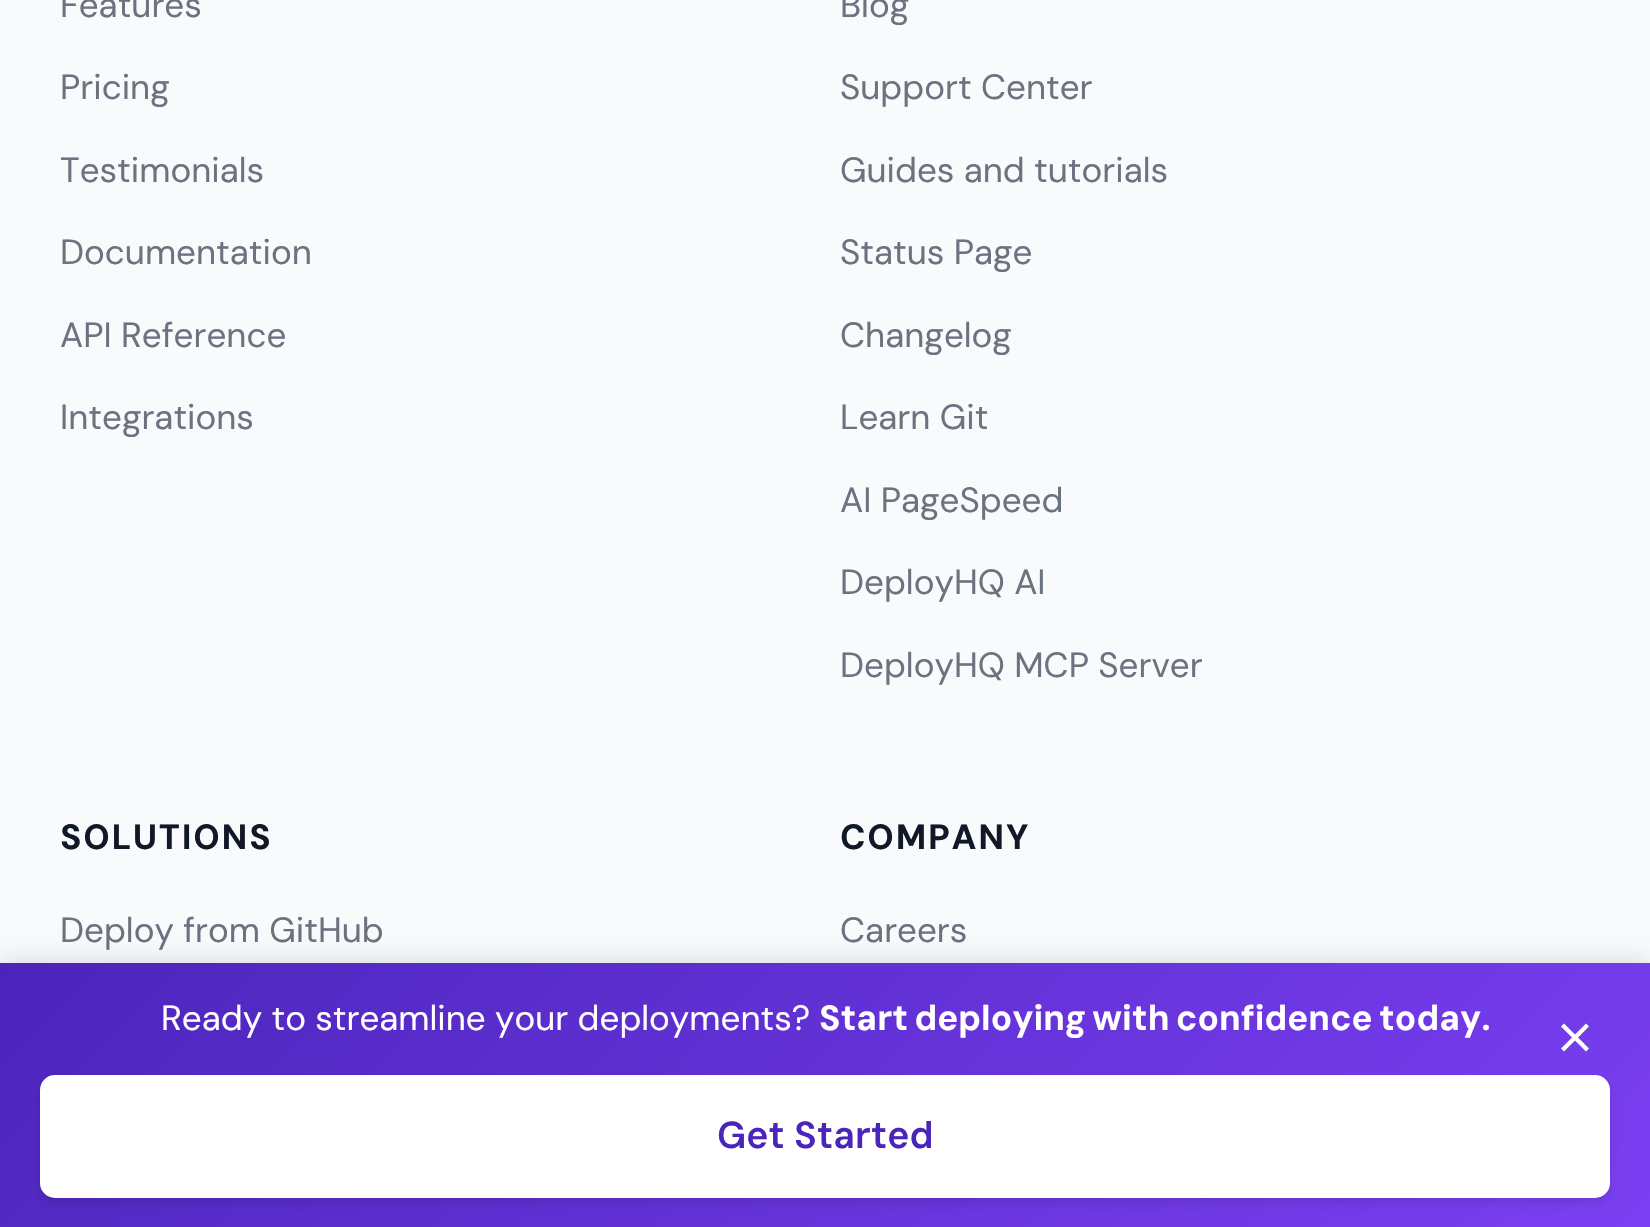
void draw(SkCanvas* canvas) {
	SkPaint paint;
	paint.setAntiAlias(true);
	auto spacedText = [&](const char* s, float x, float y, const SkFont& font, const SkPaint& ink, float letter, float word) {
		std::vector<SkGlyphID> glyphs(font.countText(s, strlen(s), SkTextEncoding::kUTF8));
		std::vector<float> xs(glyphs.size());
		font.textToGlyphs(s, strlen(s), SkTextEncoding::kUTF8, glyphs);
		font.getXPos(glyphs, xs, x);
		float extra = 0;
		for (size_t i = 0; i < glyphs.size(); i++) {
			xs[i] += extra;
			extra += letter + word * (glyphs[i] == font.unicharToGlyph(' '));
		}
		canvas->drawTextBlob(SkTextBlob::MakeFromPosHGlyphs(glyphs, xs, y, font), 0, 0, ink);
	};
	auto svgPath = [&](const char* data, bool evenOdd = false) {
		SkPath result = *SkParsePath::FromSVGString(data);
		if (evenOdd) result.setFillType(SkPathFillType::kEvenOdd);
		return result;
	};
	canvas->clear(0xfff9fafb);
	SkFont f1(fontMgr->matchFamilyStyle("DM Sans", SkFontStyle::Normal()), 35);
	f1.setSubpixel(true);
	paint.setColor(0xff6b7280);
	canvas->drawString("Features", 60, 17, f1, paint);
	canvas->drawString("Pricing", 60, 99, f1, paint);
	canvas->drawString("Testimonials", 60, 182, f1, paint);
	canvas->drawString("Documentation", 60, 264, f1, paint);
	canvas->drawString("API Reference", 60, 347, f1, paint);
	canvas->drawString("Integrations", 60, 429, f1, paint);
	canvas->drawString("Blog", 840, 17, f1, paint);
	canvas->drawString("Support Center", 840, 99, f1, paint);
	canvas->drawString("Guides and tutorials", 840, 182, f1, paint);
	canvas->drawString("Status Page", 840, 264, f1, paint);
	canvas->drawString("Changelog", 840, 347, f1, paint);
	canvas->drawString("Learn Git", 840, 429, f1, paint);
	canvas->drawString("AI PageSpeed", 840, 512, f1, paint);
	canvas->drawString("DeployHQ AI", 840, 594, f1, paint);
	canvas->drawString("DeployHQ MCP Server", 840, 677, f1, paint);
	SkFont f2(fontMgr->matchFamilyStyle("DM Sans", SkFontStyle::Bold()), 35);
	f2.setSubpixel(true);
	paint.setColor(0xff111827);
	spacedText("SOLUTIONS", 60, 849, f2, paint, 1.75, 0);
	paint.setColor(0xff6b7280);
	canvas->drawString("Deploy from GitHub", 60, 942, f1, paint);
	paint.setColor(0xff111827);
	spacedText("COMPANY", 840, 849, f2, paint, 1.75, 0);
	paint.setColor(0xff6b7280);
	canvas->drawString("Careers", 840, 942, f1, paint);
	paint.setColor(0x1a000000);
	paint.setMaskFilter(SkMaskFilter::MakeBlur(kNormal_SkBlurStyle, 10));
	canvas->drawRect(SkRect::MakeXYWH(0, 958, 1650, 265), paint);
	paint.setMaskFilter(nullptr);
	{
		const SkColor colors[] = {0xff4b25bb, 0xff7b3ff2};
		const float stops[] = {0, 1};
		const SkPoint ends[] = {{346, 616}, {1304, 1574}};
		paint.setShader(SkGradientShader::MakeLinear(ends, colors, stops, 2, SkTileMode::kClamp));
		paint.setAlpha(255);
	}
	canvas->drawRect(SkRect::MakeXYWH(0, 963, 1650, 264), paint);
	paint.setShader(nullptr);
	paint.setColor(0xffffffff);
	canvas->drawString("Ready to streamline your deployments?", 161, 1030, f1, paint);
	spacedText("Start deploying with confidence today.", 819, 1030, f2, paint, 0, -2);
	paint.setColor(0x1a000000);
	paint.setMaskFilter(SkMaskFilter::MakeBlur(kNormal_SkBlurStyle, 5));
	canvas->drawRoundRect(SkRect::MakeXYWH(40, 1080, 1570, 123), 15, 15, paint);
	paint.setMaskFilter(nullptr);
	paint.setColor(0xffffffff);
	canvas->drawRoundRect(SkRect::MakeXYWH(40, 1075, 1570, 123), 15, 15, paint);
	SkFont f3(fontMgr->matchFamilyStyle("DM Sans", SkFontStyle(600, SkFontStyle::kNormal_Width, SkFontStyle::kUpright_Slant)), 37.5);
	f3.setSubpixel(true);
	paint.setColor(0xff4b25bb);
	canvas->drawString("Get Started", 717, 1148, f3, paint);
	paint.setStroke(true);
	paint.setStrokeWidth(4.2);
	paint.setColor(0xffffffff);
	canvas->drawPath(svgPath("M1587.5 1025L1562.5 1050M1562.5 1025L1587.5 1050"), paint);
}
